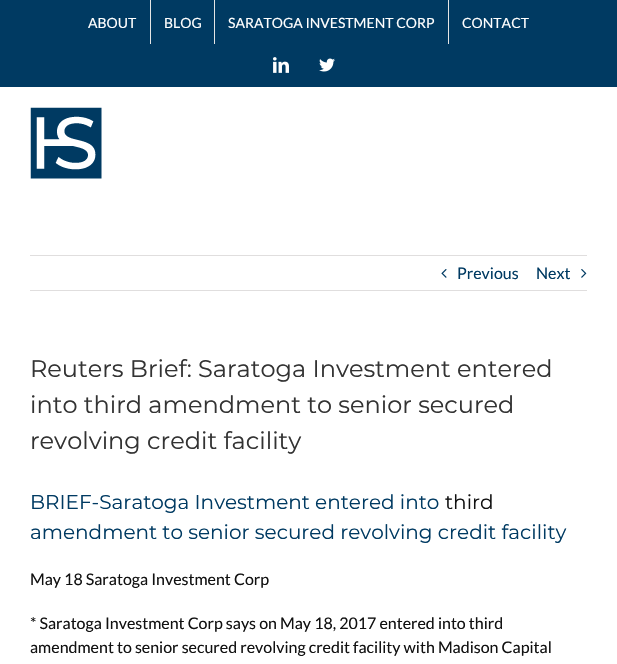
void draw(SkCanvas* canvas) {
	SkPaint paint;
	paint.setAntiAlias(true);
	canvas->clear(0xffffffff);
	paint.setColor(0xff003a62);
	canvas->drawRect(SkRect::MakeXYWH(0, 0, 617, 87), paint);
	SkFont f1(fontMgr->matchFamilyStyle("Lato", SkFontStyle::Normal()), 14);
	f1.setSubpixel(true);
	paint.setColor(0xffffffff);
	canvas->drawString("ABOUT", 88, 28, f1, paint);
	paint.setColor(0xffe5e5e5);
	canvas->drawRect(SkRect::MakeXYWH(150, 0, 1, 44), paint);
	paint.setColor(0xffffffff);
	canvas->drawString("BLOG", 164, 28, f1, paint);
	paint.setColor(0xffe5e5e5);
	canvas->drawRect(SkRect::MakeXYWH(214, 0, 1, 44), paint);
	paint.setColor(0xffffffff);
	canvas->drawString("SARATOGA INVESTMENT CORP", 228, 28, f1, paint);
	paint.setColor(0xffe5e5e5);
	canvas->drawRect(SkRect::MakeXYWH(448, 0, 1, 44), paint);
	paint.setColor(0xffffffff);
	canvas->drawString("CONTACT", 462, 28, f1, paint);
	canvas->drawImageRect(SkImages::DeferredFromEncodedData(SkData::MakeFromFileName("img1.png")), SkRect::MakeXYWH(273, 57, 16, 16), SkSamplingOptions());
	canvas->drawImageRect(SkImages::DeferredFromEncodedData(SkData::MakeFromFileName("img2.png")), SkRect::MakeXYWH(319, 58, 16, 14), SkSamplingOptions());
	canvas->drawImageRect(SkImages::DeferredFromEncodedData(SkData::MakeFromFileName("img3.png")), SkRect::MakeXYWH(30, 107, 72, 72), SkSamplingOptions());
	paint.setColor(0xffe0dede);
	canvas->drawRect(SkRect::MakeXYWH(30, 255, 557, 1), paint);
	canvas->drawRect(SkRect::MakeXYWH(30, 290, 557, 1), paint);
	canvas->drawImageRect(SkImages::DeferredFromEncodedData(SkData::MakeFromFileName("img4.png")), SkRect::MakeXYWH(441, 269, 6, 9), SkSamplingOptions());
	SkFont f2(fontMgr->matchFamilyStyle("Lato", SkFontStyle::Normal()), 16);
	f2.setSubpixel(true);
	paint.setColor(0xff003a62);
	canvas->drawString("Previous", 457, 279, f2, paint);
	canvas->drawString("Next", 536, 279, f2, paint);
	canvas->drawImageRect(SkImages::DeferredFromEncodedData(SkData::MakeFromFileName("img5.png")), SkRect::MakeXYWH(581, 269, 6, 9), SkSamplingOptions());
	SkFont f3(fontMgr->matchFamilyStyle("Montserrat", SkFontStyle(100, SkFontStyle::kNormal_Width, SkFontStyle::kUpright_Slant)), 24);
	f3.setSubpixel(true);
	paint.setColor(0xff333333);
	canvas->drawString("Reuters Brief: Saratoga Investment entered", 30, 377, f3, paint);
	canvas->drawString("into third amendment to senior secured", 30, 413, f3, paint);
	canvas->drawString("revolving credit facility", 30, 449, f3, paint);
	SkFont f4(fontMgr->matchFamilyStyle("Montserrat", SkFontStyle(100, SkFontStyle::kNormal_Width, SkFontStyle::kUpright_Slant)), 20);
	f4.setSubpixel(true);
	paint.setColor(0xff003a62);
	canvas->drawString("BRIEF-Saratoga Investment entered into", 30, 509, f4, paint);
	paint.setColor(0xff111111);
	canvas->drawString("third", 445, 509, f4, paint);
	paint.setColor(0xff003a62);
	canvas->drawString("amendment to senior secured revolving credit facility", 30, 539, f4, paint);
	paint.setColor(0xff111111);
	canvas->drawString("May 18 Saratoga Investment Corp", 30, 585, f2, paint);
	canvas->drawString("* Saratoga Investment Corp says on May 18, 2017 entered into third", 30, 629, f2, paint);
	canvas->drawString("amendment to senior secured revolving credit facility with Madison Capital", 30, 653, f2, paint);
}
